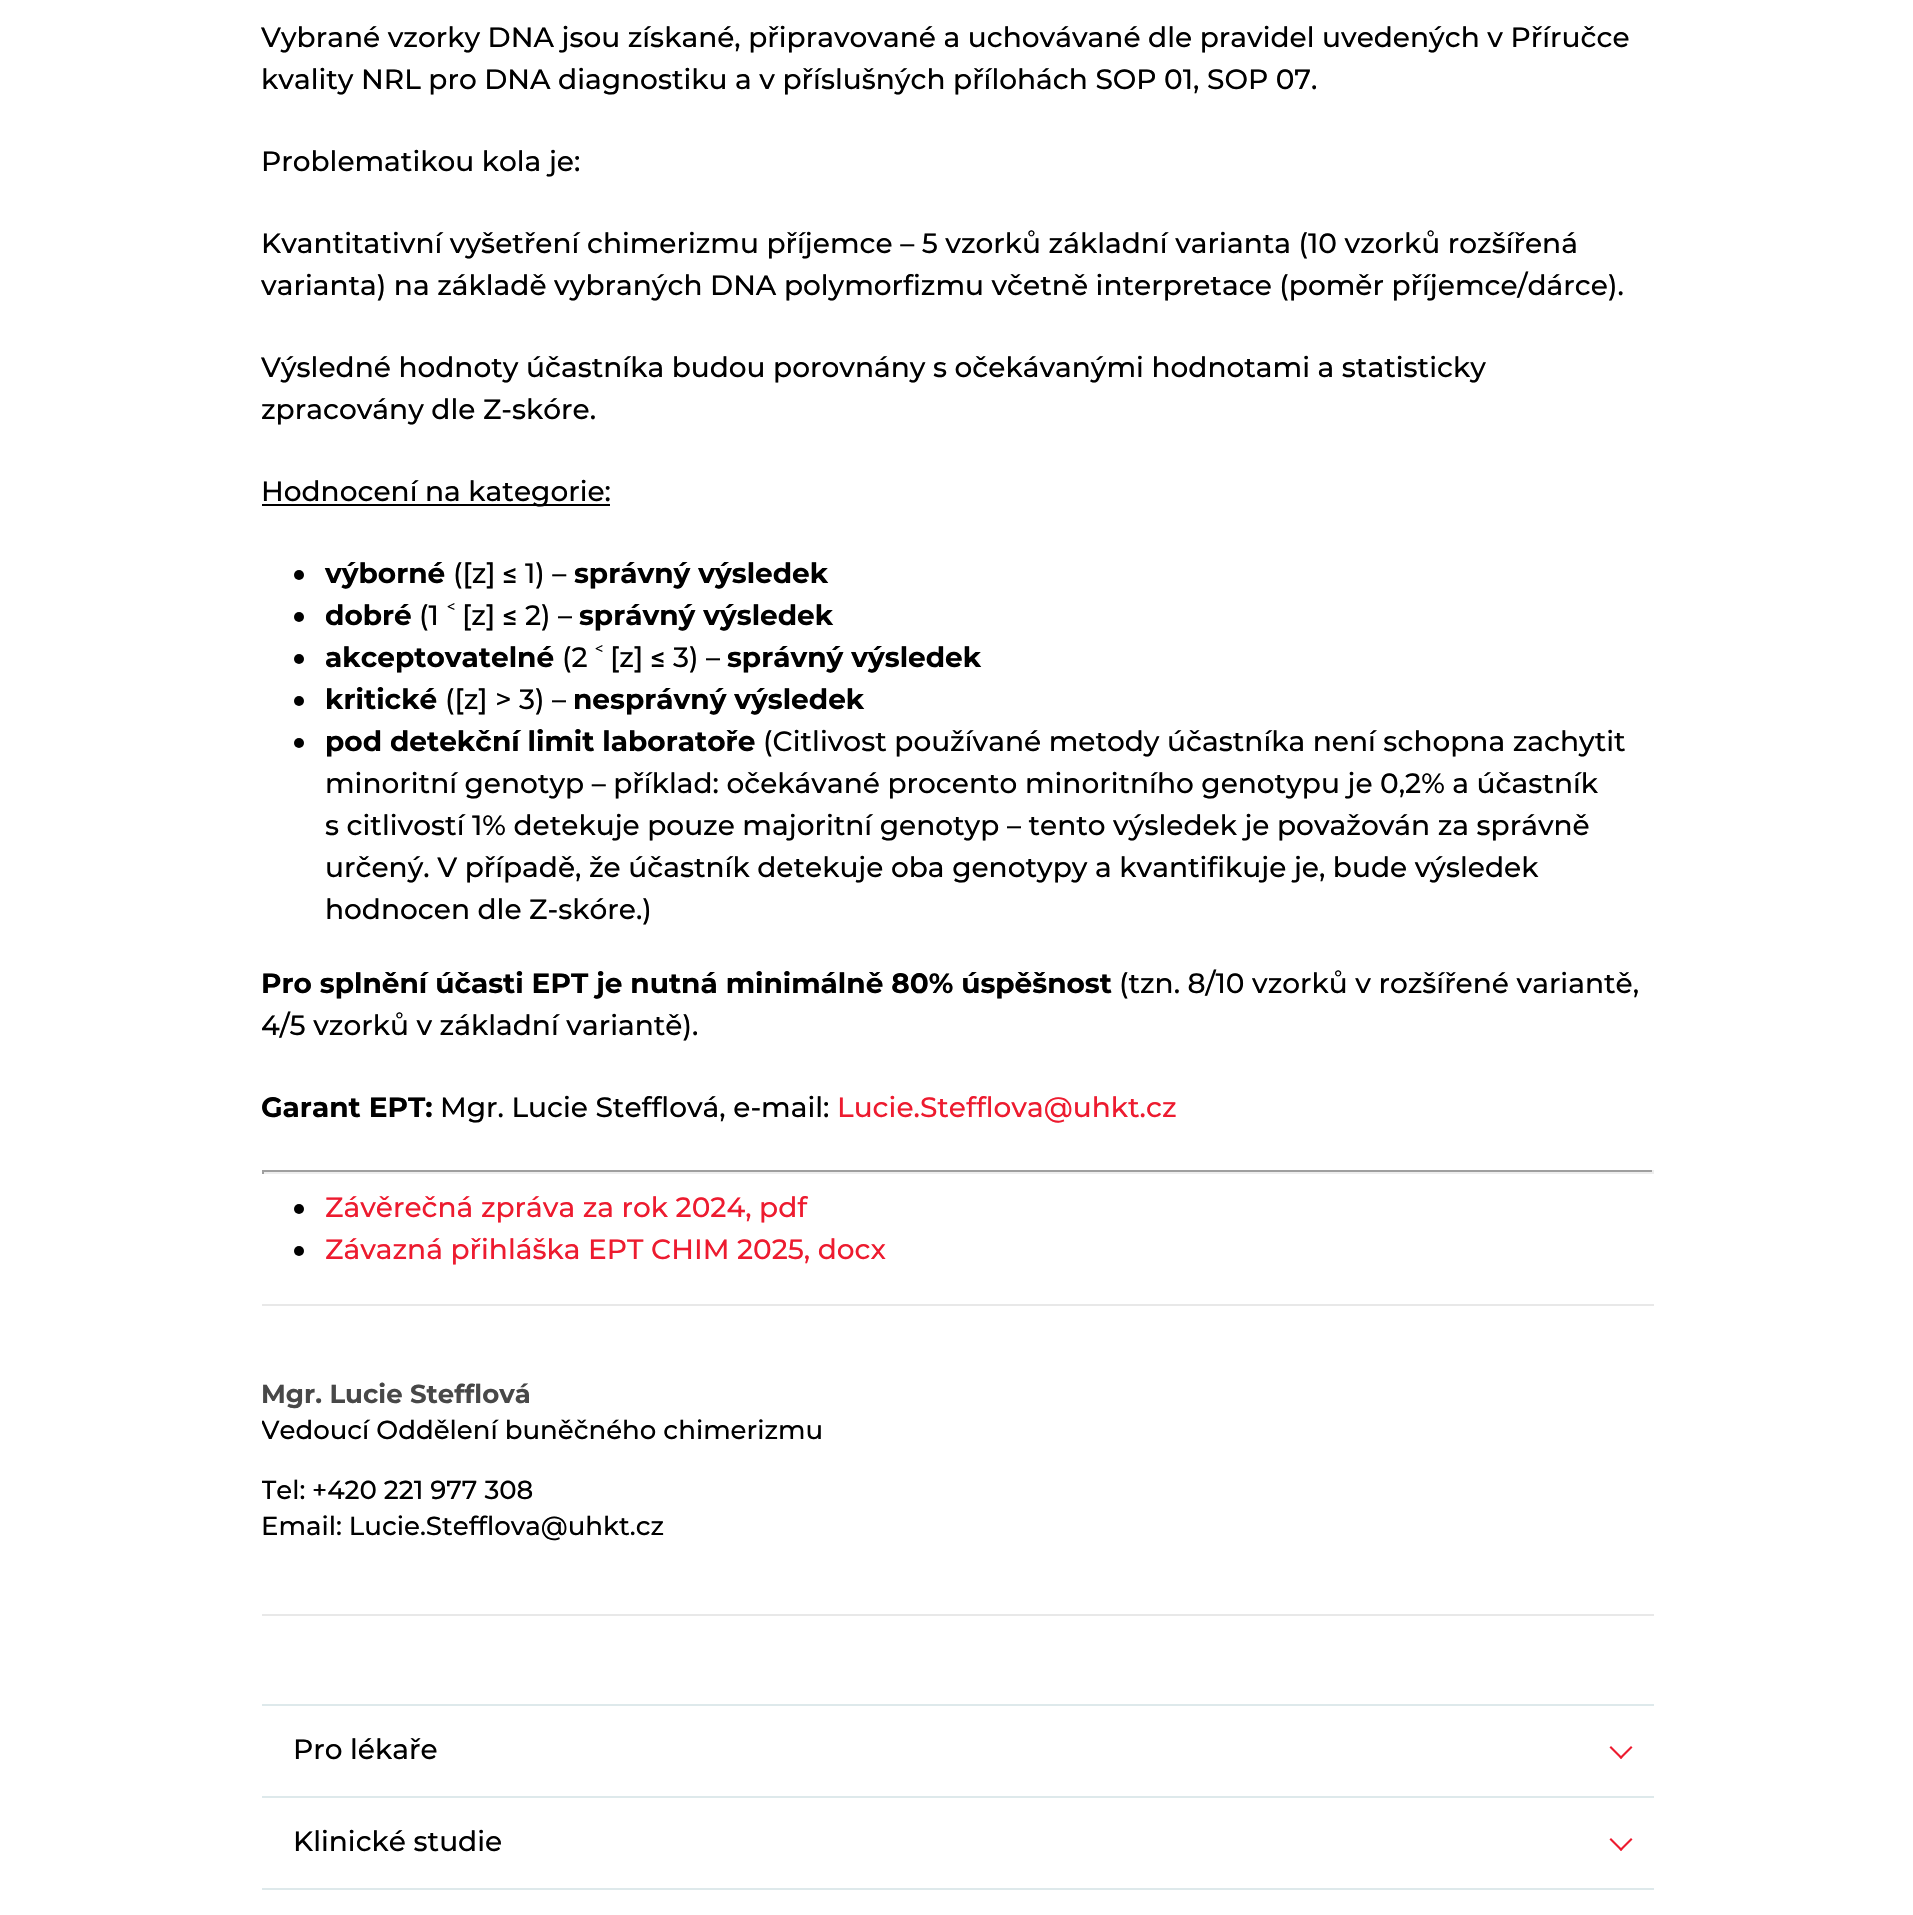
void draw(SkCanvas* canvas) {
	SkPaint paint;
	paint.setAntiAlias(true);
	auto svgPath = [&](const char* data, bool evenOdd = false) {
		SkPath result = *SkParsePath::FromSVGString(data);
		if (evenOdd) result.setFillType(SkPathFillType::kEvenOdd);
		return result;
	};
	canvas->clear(0xffffffff);
	SkFont f1(fontMgr->matchFamilyStyle("Montserrat", SkFontStyle(100, SkFontStyle::kNormal_Width, SkFontStyle::kUpright_Slant)), 28);
	f1.setSubpixel(true);
	paint.setColor(0xff000000);
	canvas->drawString("Vybrané vzorky DNA jsou získané, připravované a uchovávané dle pravidel uvedených v Příručce", 261, 47, f1, paint);
	canvas->drawString("kvality NRL pro DNA diagnostiku a v příslušných přílohách SOP 01, SOP 07.", 261, 89, f1, paint);
	canvas->drawString("Problematikou kola je:", 261, 171, f1, paint);
	canvas->drawString("Kvantitativní vyšetření chimerizmu příjemce – 5 vzorků základní varianta (10 vzorků rozšířená", 261, 253, f1, paint);
	canvas->drawString("varianta) na základě vybraných DNA polymorfizmu včetně interpretace (poměr příjemce/dárce).", 261, 295, f1, paint);
	canvas->drawString("Výsledné hodnoty účastníka budou porovnány s očekávanými hodnotami a statisticky", 261, 377, f1, paint);
	canvas->drawString("zpracovány dle Z-skóre.", 261, 419, f1, paint);
	canvas->drawRect(SkRect::MakeXYWH(262, 504, 348, 2), paint);
	canvas->drawString("Hodnocení na kategorie:", 261, 501, f1, paint);
	canvas->drawCircle(299, 575, 5, paint);
	SkFont f2(fontMgr->matchFamilyStyle("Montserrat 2", SkFontStyle(100, SkFontStyle::kNormal_Width, SkFontStyle::kUpright_Slant)), 28);
	f2.setSubpixel(true);
	canvas->drawString("výborné", 325, 583, f2, paint);
	canvas->drawString("([z]", 453, 583, f1, paint);
	SkFont f3(fontMgr->matchFamilyStyle("Roboto", SkFontStyle(500, SkFontStyle::kNormal_Width, SkFontStyle::kUpright_Slant)), 28);
	f3.setSubpixel(true);
	canvas->drawString("≤", 503, 583, f3, paint);
	canvas->drawString("1) –", 525, 583, f1, paint);
	canvas->drawString("správný výsledek", 574, 583, f2, paint);
	canvas->drawCircle(299, 617, 5, paint);
	canvas->drawString("dobré", 325, 625, f2, paint);
	canvas->drawString("(1", 419, 625, f1, paint);
	SkFont f4(fontMgr->matchFamilyStyle("Noto Sans", SkFontStyle(500, SkFontStyle::kNormal_Width, SkFontStyle::kUpright_Slant)), 28);
	f4.setSubpixel(true);
	canvas->drawString("˂", 447, 625, f4, paint);
	canvas->drawString("[z]", 462, 625, f1, paint);
	canvas->drawString("≤", 503, 625, f3, paint);
	canvas->drawString("2) –", 525, 625, f1, paint);
	canvas->drawString("správný výsledek", 579, 625, f2, paint);
	canvas->drawCircle(299, 659, 5, paint);
	canvas->drawString("akceptovatelné", 325, 667, f2, paint);
	canvas->drawString("(2", 562, 667, f1, paint);
	canvas->drawString("˂", 595, 667, f4, paint);
	canvas->drawString("[z]", 610, 667, f1, paint);
	canvas->drawString("≤", 651, 667, f3, paint);
	canvas->drawString("3) –", 673, 667, f1, paint);
	canvas->drawString("správný výsledek", 727, 667, f2, paint);
	canvas->drawCircle(299, 701, 5, paint);
	canvas->drawString("kritické", 325, 709, f2, paint);
	canvas->drawString("([z] > 3) –", 445, 709, f1, paint);
	canvas->drawString("nesprávný výsledek", 573, 709, f2, paint);
	canvas->drawCircle(299, 743, 5, paint);
	canvas->drawString("pod detekční limit laboratoře", 325, 751, f2, paint);
	canvas->drawString("(Citlivost používané metody účastníka není schopna zachytit", 763, 751, f1, paint);
	canvas->drawString("minoritní genotyp – příklad: očekávané procento minoritního genotypu je 0,2% a účastník", 325, 793, f1, paint);
	canvas->drawString("s citlivostí 1% detekuje pouze majoritní genotyp – tento výsledek je považován za správně", 325, 835, f1, paint);
	canvas->drawString("určený. V případě, že účastník detekuje oba genotypy a kvantifikuje je, bude výsledek", 325, 877, f1, paint);
	canvas->drawString("hodnocen dle Z-skóre.)", 325, 919, f1, paint);
	canvas->drawString("Pro splnění účasti EPT je nutná minimálně 80% úspěšnost", 261, 993, f2, paint);
	canvas->drawString("(tzn. 8/10 vzorků v rozšířené variantě,", 1119, 993, f1, paint);
	canvas->drawString("4/5 vzorků v základní variantě).", 261, 1035, f1, paint);
	canvas->drawString("Garant EPT:", 261, 1117, f2, paint);
	canvas->drawString("Mgr. Lucie Stefflová, e-mail:", 440, 1117, f1, paint);
	paint.setColor(0xffed1b2f);
	canvas->drawString("Lucie.Stefflova@uhkt.cz", 837, 1117, f1, paint);
	paint.setColor(0xff9f9f9f);
	canvas->drawRect(SkRect::MakeXYWH(262, 1170, 1392, 2), paint);
	paint.setColor(0xffeeeeee);
	canvas->drawRect(SkRect::MakeXYWH(1652, 1170, 2, 4), paint);
	canvas->drawRect(SkRect::MakeXYWH(262, 1172, 1392, 2), paint);
	paint.setColor(0xff9f9f9f);
	canvas->drawRect(SkRect::MakeXYWH(262, 1170, 2, 4), paint);
	paint.setColor(0xff000000);
	canvas->drawCircle(299, 1209, 5, paint);
	paint.setColor(0xffed1b2f);
	canvas->drawString("Závěrečná zpráva za rok 2024, pdf", 325, 1217, f1, paint);
	paint.setColor(0xff000000);
	canvas->drawCircle(299, 1251, 5, paint);
	paint.setColor(0xffed1b2f);
	canvas->drawString("Závazná přihláška EPT CHIM 2025, docx", 325, 1259, f1, paint);
	paint.setColor(0xffe8e8e8);
	canvas->drawRect(SkRect::MakeXYWH(262, 1304, 1392, 2), paint);
	canvas->drawRect(SkRect::MakeXYWH(262, 1614, 1392, 2), paint);
	SkFont f5(fontMgr->matchFamilyStyle("Montserrat 2", SkFontStyle(100, SkFontStyle::kNormal_Width, SkFontStyle::kUpright_Slant)), 26);
	f5.setSubpixel(true);
	paint.setColor(0xff484848);
	canvas->drawString("Mgr. Lucie Stefflová", 261, 1403, f5, paint);
	canvas->save();
	canvas->clipRect(SkRect::MakeXYWH(262, 1352, 1392, 216));
	SkFont f6(fontMgr->matchFamilyStyle("Montserrat", SkFontStyle(100, SkFontStyle::kNormal_Width, SkFontStyle::kUpright_Slant)), 26);
	f6.setSubpixel(true);
	paint.setColor(0xff000000);
	canvas->drawString("Vedoucí Oddělení buněčného chimerizmu", 261, 1439, f6, paint);
	canvas->drawString("Tel:", 261, 1499, f6, paint);
	canvas->restore();
	canvas->drawString("+420 221 977 308", 312, 1499, f6, paint);
	canvas->drawString("Email: Lucie.Stefflova@uhkt.cz", 261, 1535, f6, paint);
	paint.setColor(0xffdee9eb);
	canvas->drawRect(SkRect::MakeXYWH(262, 1704, 1392, 2), paint);
	canvas->drawRect(SkRect::MakeXYWH(262, 1796, 1392, 2), paint);
	paint.setColor(0xff000000);
	canvas->drawString("Pro lékaře", 293, 1759, f1, paint);
	paint.setColor(0xffed1b2f);
	canvas->drawPath(svgPath("M1621 1759L1609.5 1747.5L1611 1746L1622.5 1757.5Z"), paint);
	canvas->drawPath(svgPath("M1621 1759L1619.5 1757.5L1631 1746L1632.5 1747.5Z"), paint);
	paint.setColor(0xffdee9eb);
	canvas->drawRect(SkRect::MakeXYWH(262, 1888, 1392, 2), paint);
	paint.setColor(0xff000000);
	canvas->drawString("Klinické studie", 293, 1851, f1, paint);
	paint.setColor(0xffed1b2f);
	canvas->drawPath(svgPath("M1621 1851L1609.5 1839.5L1611 1838L1622.5 1849.5Z"), paint);
	canvas->drawPath(svgPath("M1621 1851L1619.5 1849.5L1631 1838L1632.5 1839.5Z"), paint);
}
